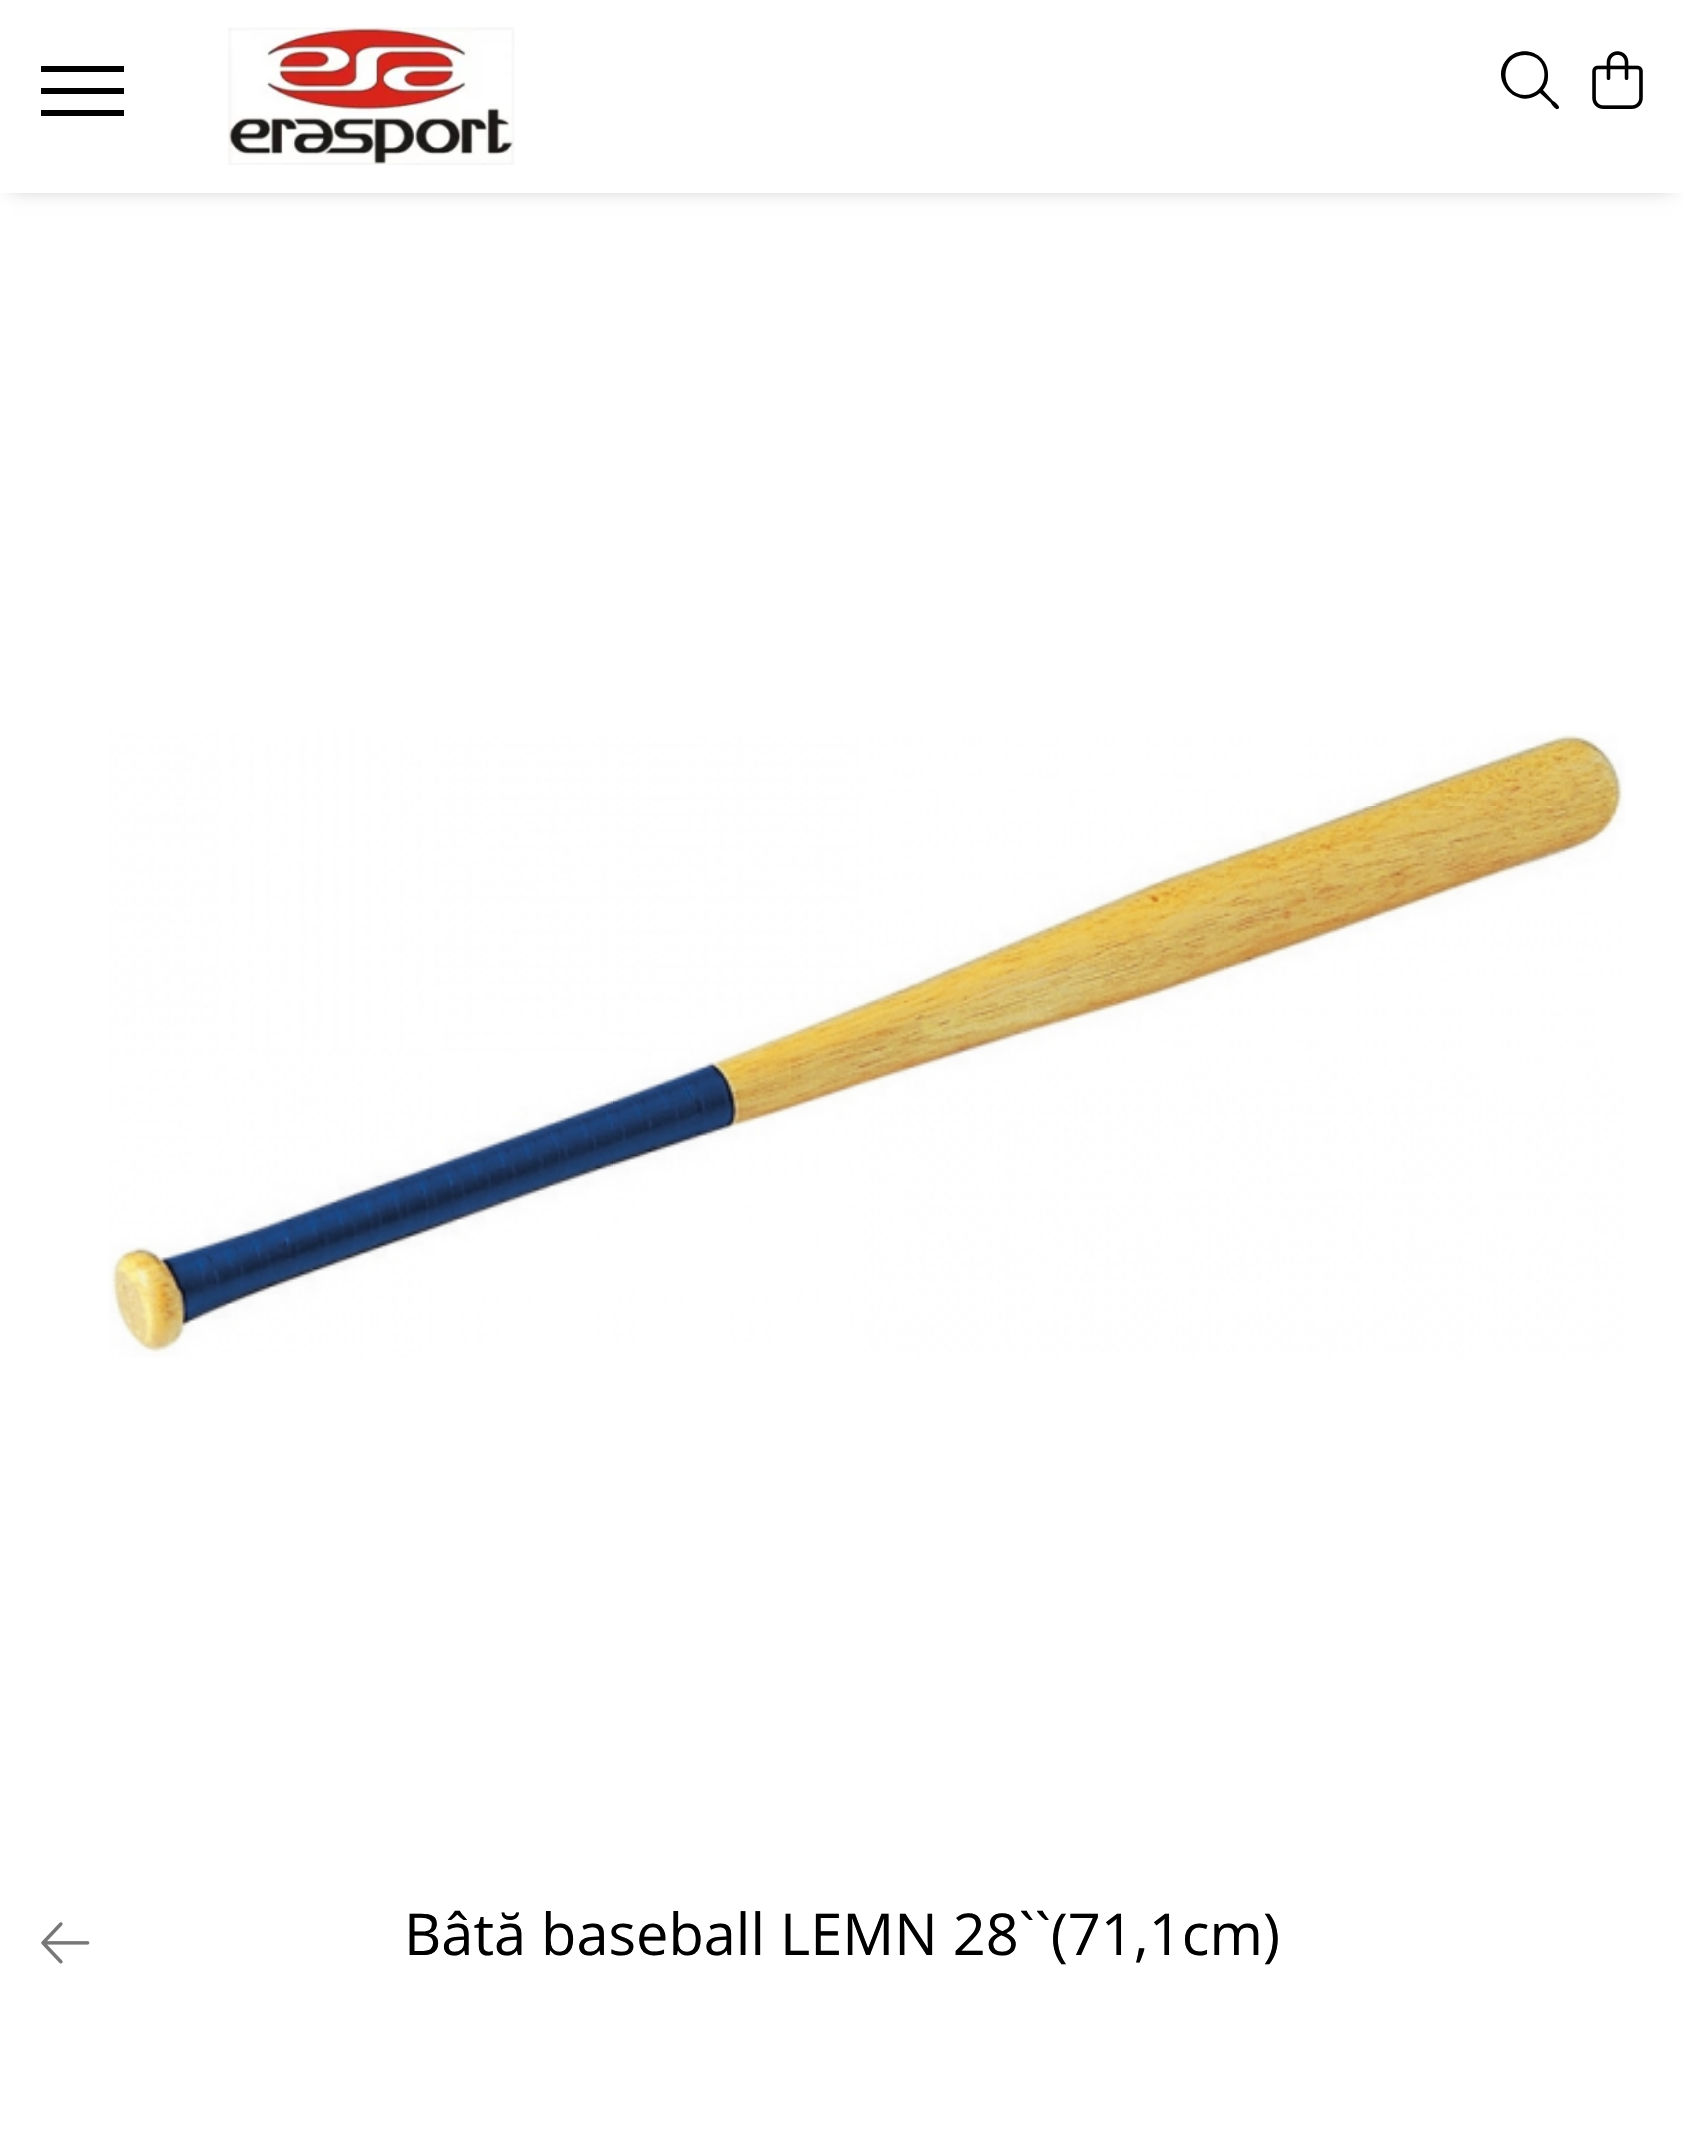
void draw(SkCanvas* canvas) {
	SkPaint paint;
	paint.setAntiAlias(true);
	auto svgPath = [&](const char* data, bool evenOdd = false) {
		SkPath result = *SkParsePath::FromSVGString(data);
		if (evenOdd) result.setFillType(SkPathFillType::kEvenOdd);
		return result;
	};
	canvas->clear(0xffffffff);
	paint.setColor(0x4d000000);
	paint.setMaskFilter(SkMaskFilter::MakeBlur(kNormal_SkBlurStyle, 9.5));
	canvas->drawRect(SkRect::MakeXYWH(11, 17, 1661, 170), paint);
	paint.setMaskFilter(nullptr);
	paint.setColor(0xffffffff);
	canvas->drawRect(SkRect::MakeXYWH(0, 0, 1683, 193), paint);
	paint.setColor(0xff000000);
	canvas->drawRect(SkRect::MakeXYWH(41, 88, 83, 6), paint);
	canvas->drawRect(SkRect::MakeXYWH(41, 66, 83, 6), paint);
	canvas->drawRect(SkRect::MakeXYWH(41, 110, 83, 6), paint);
	canvas->drawImageRect(SkImages::DeferredFromEncodedData(SkData::MakeFromFileName("img1.png")), SkRect::MakeXYWH(228, 27, 287, 138), SkSamplingOptions());
	canvas->drawPath(svgPath("M1543 90C1546 86 1548 82 1548 77C1550 55 1524 43 1508 58C1487 79 1518 112 1540 93L1551 103C1551 104 1557 112 1559 108C1560 106 1554 101 1553 101ZM1525 95C1499 94 1499 55 1525 55C1551 55 1551 94 1525 95Z"), paint);
	canvas->drawImageRect(SkImages::DeferredFromEncodedData(SkData::MakeFromFileName("img2.png")), SkRect::MakeXYWH(1592, 51, 51, 58), SkSamplingOptions());
	canvas->drawImageRect(SkImages::DeferredFromEncodedData(SkData::MakeFromFileName("img3.png")), SkRect::MakeXYWH(108, 731, 1517, 627), SkSamplingOptions());
	canvas->drawImageRect(SkImages::DeferredFromEncodedData(SkData::MakeFromFileName("img4.png")), SkRect::MakeXYWH(41, 1922, 49, 42), SkSamplingOptions());
	SkFont f1(fontMgr->matchFamilyStyle("Open Sans", SkFontStyle::Normal()), 57.75);
	f1.setSubpixel(true);
	canvas->drawString("Bâtă baseball LEMN 28``(71,1cm)", 404, 1955, f1, paint);
}
